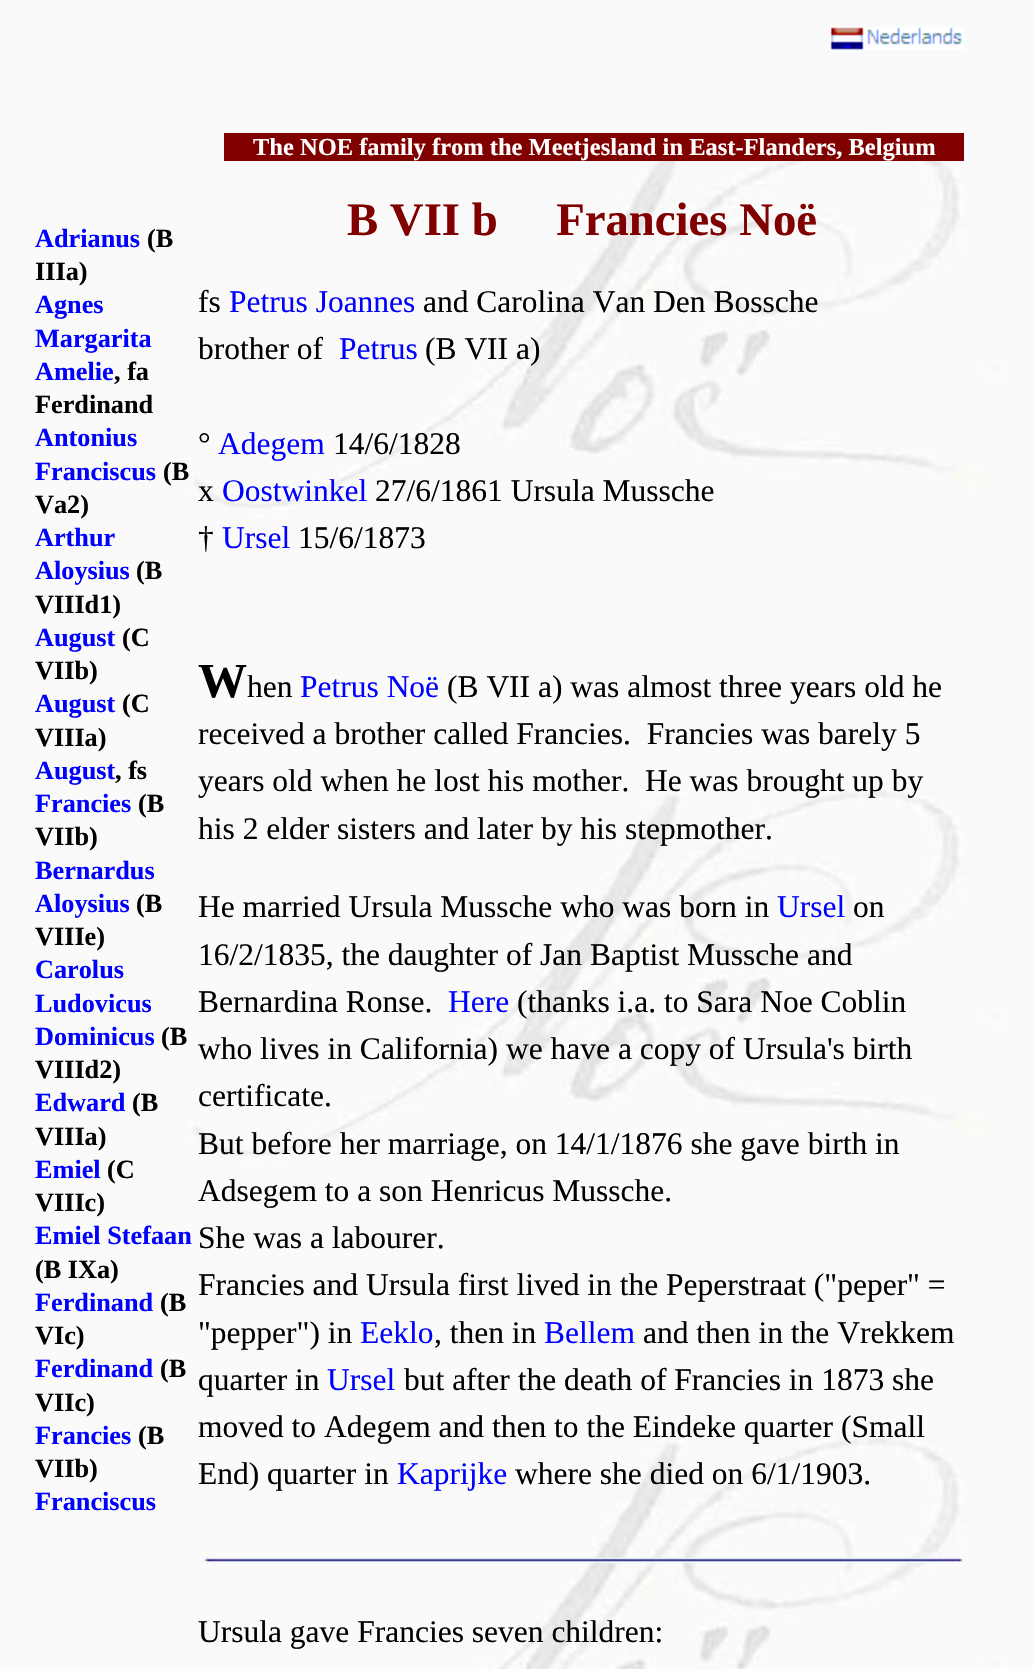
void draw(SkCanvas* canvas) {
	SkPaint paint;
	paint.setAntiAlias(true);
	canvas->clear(0xffffffff);
	canvas->drawImageRect(SkImages::DeferredFromEncodedData(SkData::MakeFromFileName("img1.png")), SkRect::MakeXYWH(0, 0, 1033, 1669), SkSamplingOptions());
	SkFont f1(fontMgr->matchFamilyStyle("Liberation Serif", SkFontStyle::Bold()), 26.25);
	f1.setSubpixel(true);
	paint.setColor(0xff0000ff);
	canvas->drawString("Adrianus", 35, 247, f1, paint);
	paint.setColor(0xff000000);
	canvas->drawString("(B", 147, 247, f1, paint);
	canvas->drawString("IIIa)", 35, 280, f1, paint);
	paint.setColor(0xff0000ff);
	canvas->drawString("Agnes", 35, 313, f1, paint);
	canvas->drawString("Margarita", 35, 347, f1, paint);
	canvas->drawString("Amelie", 35, 380, f1, paint);
	paint.setColor(0xff000000);
	canvas->drawString(", fa", 114, 380, f1, paint);
	canvas->drawString("Ferdinand", 35, 413, f1, paint);
	paint.setColor(0xff0000ff);
	canvas->drawString("Antonius", 35, 446, f1, paint);
	canvas->drawString("Franciscus", 35, 480, f1, paint);
	paint.setColor(0xff000000);
	canvas->drawString("(B", 163, 480, f1, paint);
	canvas->drawString("Va2)", 35, 513, f1, paint);
	paint.setColor(0xff0000ff);
	canvas->drawString("Arthur", 35, 546, f1, paint);
	canvas->drawString("Aloysius", 35, 579, f1, paint);
	paint.setColor(0xff000000);
	canvas->drawString("(B", 136, 579, f1, paint);
	canvas->drawString("VIIId1)", 35, 613, f1, paint);
	paint.setColor(0xff0000ff);
	canvas->drawString("August", 35, 646, f1, paint);
	paint.setColor(0xff000000);
	canvas->drawString("(C", 122, 646, f1, paint);
	canvas->drawString("VIIb)", 35, 679, f1, paint);
	paint.setColor(0xff0000ff);
	canvas->drawString("August", 35, 712, f1, paint);
	paint.setColor(0xff000000);
	canvas->drawString("(C", 122, 712, f1, paint);
	canvas->drawString("VIIIa)", 35, 746, f1, paint);
	paint.setColor(0xff0000ff);
	canvas->drawString("August", 35, 779, f1, paint);
	paint.setColor(0xff000000);
	canvas->drawString(", fs", 115, 779, f1, paint);
	paint.setColor(0xff0000ff);
	canvas->drawString("Francies", 35, 812, f1, paint);
	paint.setColor(0xff000000);
	canvas->drawString("(B", 138, 812, f1, paint);
	canvas->drawString("VIIb)", 35, 845, f1, paint);
	paint.setColor(0xff0000ff);
	canvas->drawString("Bernardus", 35, 879, f1, paint);
	canvas->drawString("Aloysius", 35, 912, f1, paint);
	paint.setColor(0xff000000);
	canvas->drawString("(B", 136, 912, f1, paint);
	canvas->drawString("VIIIe)", 35, 945, f1, paint);
	paint.setColor(0xff0000ff);
	canvas->drawString("Carolus", 35, 978, f1, paint);
	canvas->drawString("Ludovicus", 35, 1012, f1, paint);
	canvas->drawString("Dominicus", 35, 1045, f1, paint);
	paint.setColor(0xff000000);
	canvas->drawString("(B", 161, 1045, f1, paint);
	canvas->drawString("VIIId2)", 35, 1078, f1, paint);
	paint.setColor(0xff0000ff);
	canvas->drawString("Edward", 35, 1111, f1, paint);
	paint.setColor(0xff000000);
	canvas->drawString("(B", 132, 1111, f1, paint);
	canvas->drawString("VIIIa)", 35, 1145, f1, paint);
	paint.setColor(0xff0000ff);
	canvas->drawString("Emiel", 35, 1178, f1, paint);
	paint.setColor(0xff000000);
	canvas->drawString("(C", 107, 1178, f1, paint);
	canvas->drawString("VIIIc)", 35, 1211, f1, paint);
	paint.setColor(0xff0000ff);
	canvas->drawString("Emiel Stefaan", 35, 1244, f1, paint);
	paint.setColor(0xff000000);
	canvas->drawString("(B IXa)", 35, 1278, f1, paint);
	paint.setColor(0xff0000ff);
	canvas->drawString("Ferdinand", 35, 1311, f1, paint);
	paint.setColor(0xff000000);
	canvas->drawString("(B", 160, 1311, f1, paint);
	canvas->drawString("VIc)", 35, 1344, f1, paint);
	paint.setColor(0xff0000ff);
	canvas->drawString("Ferdinand", 35, 1377, f1, paint);
	paint.setColor(0xff000000);
	canvas->drawString("(B", 160, 1377, f1, paint);
	canvas->drawString("VIIc)", 35, 1411, f1, paint);
	paint.setColor(0xff0000ff);
	canvas->drawString("Francies", 35, 1444, f1, paint);
	paint.setColor(0xff000000);
	canvas->drawString("(B", 138, 1444, f1, paint);
	canvas->drawString("VIIb)", 35, 1477, f1, paint);
	paint.setColor(0xff0000ff);
	canvas->drawString("Franciscus", 35, 1510, f1, paint);
	canvas->drawImageRect(SkImages::DeferredFromEncodedData(SkData::MakeFromFileName("img2.png")), SkRect::MakeXYWH(830, 27, 134, 23), SkSamplingOptions());
	paint.setColor(0xff800000);
	canvas->drawRect(SkRect::MakeXYWH(224, 133, 740, 28), paint);
	SkFont f2(fontMgr->matchFamilyStyle("Liberation Serif", SkFontStyle::Bold()), 24.5);
	f2.setSubpixel(true);
	paint.setColor(0xffffffff);
	canvas->drawString("The NOE family from the Meetjesland in East-Flanders, Belgium", 253, 155, f2, paint);
	SkFont f3(fontMgr->matchFamilyStyle("Liberation Serif", SkFontStyle::Bold()), 46.75);
	f3.setSubpixel(true);
	paint.setColor(0xff800000);
	canvas->drawString("B VII b     Francies Noë", 347, 235, f3, paint);
	SkFont f4(fontMgr->matchFamilyStyle("Liberation Serif", SkFontStyle::Normal()), 31.5);
	f4.setSubpixel(true);
	paint.setColor(0xff000000);
	canvas->drawString("fs", 198, 312, f4, paint);
	paint.setColor(0xff0000ff);
	canvas->drawString("Petrus Joannes", 229, 312, f4, paint);
	paint.setColor(0xff000000);
	canvas->drawString("and Carolina Van Den Bossche", 423, 312, f4, paint);
	canvas->drawString("brother of", 198, 359, f4, paint);
	paint.setColor(0xff0000ff);
	canvas->drawString("Petrus", 339, 359, f4, paint);
	paint.setColor(0xff000000);
	canvas->drawString("(B VII a)", 425, 359, f4, paint);
	canvas->drawString("°", 198, 454, f4, paint);
	paint.setColor(0xff0000ff);
	canvas->drawString("Adegem", 218, 454, f4, paint);
	paint.setColor(0xff000000);
	canvas->drawString("14/6/1828", 333, 454, f4, paint);
	canvas->drawString("x", 198, 501, f4, paint);
	paint.setColor(0xff0000ff);
	canvas->drawString("Oostwinkel", 222, 501, f4, paint);
	paint.setColor(0xff000000);
	canvas->drawString("27/6/1861 Ursula Mussche", 375, 501, f4, paint);
	canvas->drawString("†", 198, 548, f4, paint);
	paint.setColor(0xff0000ff);
	canvas->drawString("Ursel", 222, 548, f4, paint);
	paint.setColor(0xff000000);
	canvas->drawString("15/6/1873", 298, 548, f4, paint);
	SkFont f5(fontMgr->matchFamilyStyle("Liberation Serif", SkFontStyle::Bold()), 49);
	f5.setSubpixel(true);
	canvas->drawString("W", 198, 697, f5, paint);
	canvas->drawString("hen", 247, 697, f4, paint);
	paint.setColor(0xff0000ff);
	canvas->drawString("Petrus Noë", 300, 697, f4, paint);
	paint.setColor(0xff000000);
	canvas->drawString("(B VII a) was almost three years old he", 447, 697, f4, paint);
	canvas->drawString("received a brother called Francies.  Francies was barely 5", 198, 744, f4, paint);
	canvas->drawString("years old when he lost his mother.", 198, 791, f4, paint);
	canvas->drawString("He was brought up by", 645, 791, f4, paint);
	canvas->drawString("his 2 elder sisters and later by his stepmother.", 198, 839, f4, paint);
	canvas->drawString("He married Ursula Mussche who was born in", 198, 917, f4, paint);
	paint.setColor(0xff0000ff);
	canvas->drawString("Ursel", 777, 917, f4, paint);
	paint.setColor(0xff000000);
	canvas->drawString("on", 853, 917, f4, paint);
	canvas->drawString("16/2/1835, the daughter of Jan Baptist Mussche and", 198, 965, f4, paint);
	canvas->drawString("Bernardina Ronse.", 198, 1012, f4, paint);
	paint.setColor(0xff0000ff);
	canvas->drawString("Here", 448, 1012, f4, paint);
	paint.setColor(0xff000000);
	canvas->drawString("(thanks i.a. to Sara Noe Coblin", 517, 1012, f4, paint);
	canvas->drawString("who lives in California) we have a copy of Ursula's birth", 198, 1059, f4, paint);
	canvas->drawString("certificate.", 198, 1106, f4, paint);
	canvas->drawString("But before her marriage, on 14/1/1876 she gave birth in", 198, 1154, f4, paint);
	canvas->drawString("Adsegem to a son Henricus Mussche.", 198, 1201, f4, paint);
	canvas->drawString("She was a labourer.", 198, 1248, f4, paint);
	canvas->drawString("Francies and Ursula first lived in the Peperstraat (\"peper\" =", 198, 1295, f4, paint);
	canvas->drawString("\"pepper\") in", 198, 1343, f4, paint);
	paint.setColor(0xff0000ff);
	canvas->drawString("Eeklo", 360, 1343, f4, paint);
	paint.setColor(0xff000000);
	canvas->drawString(", then in", 434, 1343, f4, paint);
	paint.setColor(0xff0000ff);
	canvas->drawString("Bellem", 544, 1343, f4, paint);
	paint.setColor(0xff000000);
	canvas->drawString("and then in the Vrekkem", 643, 1343, f4, paint);
	canvas->drawString("quarter in", 198, 1390, f4, paint);
	paint.setColor(0xff0000ff);
	canvas->drawString("Ursel", 327, 1390, f4, paint);
	paint.setColor(0xff000000);
	canvas->drawString("but after the death of Francies in 1873 she", 404, 1390, f4, paint);
	canvas->drawString("moved to Adegem and then to the Eindeke quarter (Small", 198, 1437, f4, paint);
	canvas->drawString("End) quarter in", 198, 1484, f4, paint);
	paint.setColor(0xff0000ff);
	canvas->drawString("Kaprijke", 397, 1484, f4, paint);
	paint.setColor(0xff000000);
	canvas->drawString("where she died on 6/1/1903.", 515, 1484, f4, paint);
	canvas->drawImageRect(SkImages::DeferredFromEncodedData(SkData::MakeFromFileName("img3.png")), SkRect::MakeXYWH(199, 1557, 765, 6), SkSamplingOptions());
	canvas->drawString("Ursula gave Francies seven children:", 198, 1642, f4, paint);
}
